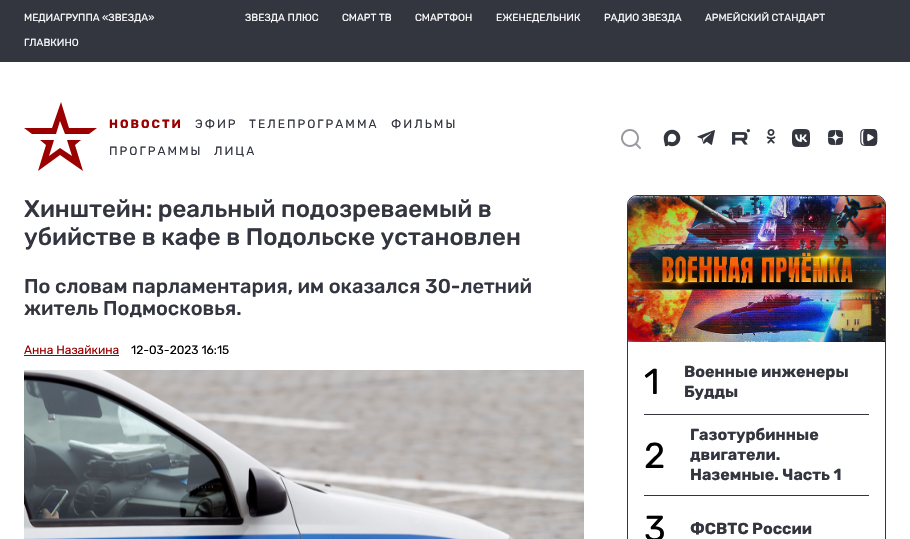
void draw(SkCanvas* canvas) {
	SkPaint paint;
	paint.setAntiAlias(true);
	auto spacedText = [&](const char* s, float x, float y, const SkFont& font, const SkPaint& ink, float letter, float word) {
		std::vector<SkGlyphID> glyphs(font.countText(s, strlen(s), SkTextEncoding::kUTF8));
		std::vector<float> xs(glyphs.size());
		font.textToGlyphs(s, strlen(s), SkTextEncoding::kUTF8, glyphs);
		font.getXPos(glyphs, xs, x);
		float extra = 0;
		for (size_t i = 0; i < glyphs.size(); i++) {
			xs[i] += extra;
			extra += letter + word * (glyphs[i] == font.unicharToGlyph(' '));
		}
		canvas->drawTextBlob(SkTextBlob::MakeFromPosHGlyphs(glyphs, xs, y, font), 0, 0, ink);
	};
	auto svgPath = [&](const char* data, bool evenOdd = false) {
		SkPath result = *SkParsePath::FromSVGString(data);
		if (evenOdd) result.setFillType(SkPathFillType::kEvenOdd);
		return result;
	};
	canvas->clear(0xffffffff);
	paint.setColor(0xff33353f);
	canvas->drawRect(SkRect::MakeXYWH(0, 0, 910, 62), paint);
	SkFont f1(fontMgr->matchFamilyStyle("Rubik", SkFontStyle::Normal()), 10.25);
	f1.setSubpixel(true);
	paint.setColor(0xffffffff);
	canvas->drawString("МЕДИАГРУППА «ЗВЕЗДА»", 24, 21, f1, paint);
	canvas->drawString("ЗВЕЗДА ПЛЮС", 245, 21, f1, paint);
	canvas->drawString("СМАРТ ТВ", 342, 21, f1, paint);
	canvas->drawString("СМАРТФОН", 415, 21, f1, paint);
	canvas->drawString("ЕЖЕНЕДЕЛЬНИК", 496, 21, f1, paint);
	canvas->drawString("РАДИО ЗВЕЗДА", 604, 21, f1, paint);
	canvas->drawString("АРМЕЙСКИЙ СТАНДАРТ", 705, 21, f1, paint);
	canvas->drawString("ГЛАВКИНО", 24, 46, f1, paint);
	paint.setColor(0xff9a0000);
	canvas->drawPath(svgPath("M24 128H52L61 102L69 128H97L89 134H65L60 121L56 134H32ZM72 156L67 140H81L75 145L83 171L60 155L38 171L46 145L40 140H54L49 156L60 148Z", true), paint);
	SkFont f2(fontMgr->matchFamilyStyle("Rubik", SkFontStyle::Bold()), 12);
	f2.setSubpixel(true);
	spacedText("НОВОСТИ", 109, 128, f2, paint, 2, 0);
	SkFont f3(fontMgr->matchFamilyStyle("Rubik", SkFontStyle::Normal()), 12);
	f3.setSubpixel(true);
	paint.setColor(0xff33353f);
	spacedText("ЭФИР", 195, 128, f3, paint, 2, 0);
	spacedText("ТЕЛЕПРОГРАММА", 249, 128, f3, paint, 2, 0);
	spacedText("ФИЛЬМЫ", 391, 128, f3, paint, 2, 0);
	spacedText("ПРОГРАММЫ", 109, 155, f3, paint, 2, 0);
	spacedText("ЛИЦА", 214, 155, f3, paint, 2, 0);
	canvas->drawImageRect(SkImages::DeferredFromEncodedData(SkData::MakeFromFileName("img1.png")), SkRect::MakeXYWH(621, 129, 20, 20), SkSamplingOptions());
	canvas->drawImageRect(SkImages::DeferredFromEncodedData(SkData::MakeFromFileName("img2.png")), SkRect::MakeXYWH(663, 129, 18, 18), SkSamplingOptions());
	canvas->drawImageRect(SkImages::DeferredFromEncodedData(SkData::MakeFromFileName("img3.png")), SkRect::MakeXYWH(697, 130, 18, 15), SkSamplingOptions());
	canvas->drawImageRect(SkImages::DeferredFromEncodedData(SkData::MakeFromFileName("img4.png")), SkRect::MakeXYWH(732, 129, 18, 16), SkSamplingOptions());
	canvas->drawImageRect(SkImages::DeferredFromEncodedData(SkData::MakeFromFileName("img5.png")), SkRect::MakeXYWH(766, 129, 10, 15), SkSamplingOptions());
	canvas->drawImageRect(SkImages::DeferredFromEncodedData(SkData::MakeFromFileName("img6.png")), SkRect::MakeXYWH(792, 129, 18, 18), SkSamplingOptions());
	canvas->drawImageRect(SkImages::DeferredFromEncodedData(SkData::MakeFromFileName("img7.png")), SkRect::MakeXYWH(828, 130, 15, 15), SkSamplingOptions());
	canvas->drawImageRect(SkImages::DeferredFromEncodedData(SkData::MakeFromFileName("img8.png")), SkRect::MakeXYWH(860, 129, 18, 17), SkSamplingOptions());
	SkFont f4(fontMgr->matchFamilyStyle("Rubik", SkFontStyle(500, SkFontStyle::kNormal_Width, SkFontStyle::kUpright_Slant)), 24);
	f4.setSubpixel(true);
	canvas->drawString("Хинштейн: реальный подозреваемый в", 24, 217, f4, paint);
	canvas->drawString("убийстве в кафе в Подольске установлен", 24, 245, f4, paint);
	SkFont f5(fontMgr->matchFamilyStyle("Rubik", SkFontStyle(500, SkFontStyle::kNormal_Width, SkFontStyle::kUpright_Slant)), 20);
	f5.setSubpixel(true);
	canvas->drawString("По словам парламентария, им оказался 30-летний", 24, 293, f5, paint);
	canvas->drawString("житель Подмосковья.", 24, 315, f5, paint);
	paint.setColor(0xff9a0000);
	canvas->drawString("Анна Назайкина", 24, 354, f3, paint);
	canvas->drawRect(SkRect::MakeXYWH(24, 355, 95, 1), paint);
	paint.setColor(0xff000000);
	canvas->drawString("12-03-2023 16:15", 131, 354, f3, paint);
	canvas->drawImageRect(SkImages::DeferredFromEncodedData(SkData::MakeFromFileName("img9.png")), SkRect::MakeXYWH(24, 370, 560, 169), SkSamplingOptions());
	paint.setStroke(true);
	paint.setStrokeWidth(1);
	paint.setColor(0xff33353f);
	canvas->drawRoundRect(SkRect::MakeXYWH(627.5, 195.5, 258, 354), 9.5, 9.5, paint);
	canvas->drawImageRect(SkImages::DeferredFromEncodedData(SkData::MakeFromFileName("img10.png")), SkRect::MakeXYWH(628, 196, 257, 146), SkSamplingOptions());
	paint.setStroke(false);
	canvas->drawRect(SkRect::MakeXYWH(644, 414, 225, 1), paint);
	SkFont f6(fontMgr->matchFamilyStyle("Rubik", SkFontStyle::Normal()), 36);
	f6.setSubpixel(true);
	paint.setColor(0xff000000);
	canvas->drawString("1", 644, 394, f6, paint);
	SkFont f7(fontMgr->matchFamilyStyle("Rubik", SkFontStyle::Bold()), 16);
	f7.setSubpixel(true);
	paint.setColor(0xff33353f);
	canvas->drawString("Военные инженеры", 684, 377, f7, paint);
	canvas->drawString("Будды", 684, 397, f7, paint);
	canvas->drawRect(SkRect::MakeXYWH(644, 495, 225, 1), paint);
	paint.setColor(0xff000000);
	canvas->drawString("2", 644, 468, f6, paint);
	paint.setColor(0xff33353f);
	canvas->drawString("Газотурбинные", 690, 440, f7, paint);
	canvas->drawString("двигатели.", 690, 460, f7, paint);
	canvas->drawString("Наземные. Часть 1", 690, 480, f7, paint);
	paint.setColor(0xff000000);
	canvas->drawString("3", 644, 541, f6, paint);
	paint.setColor(0xff33353f);
	canvas->drawString("ФСВТС России", 690, 534, f7, paint);
}
